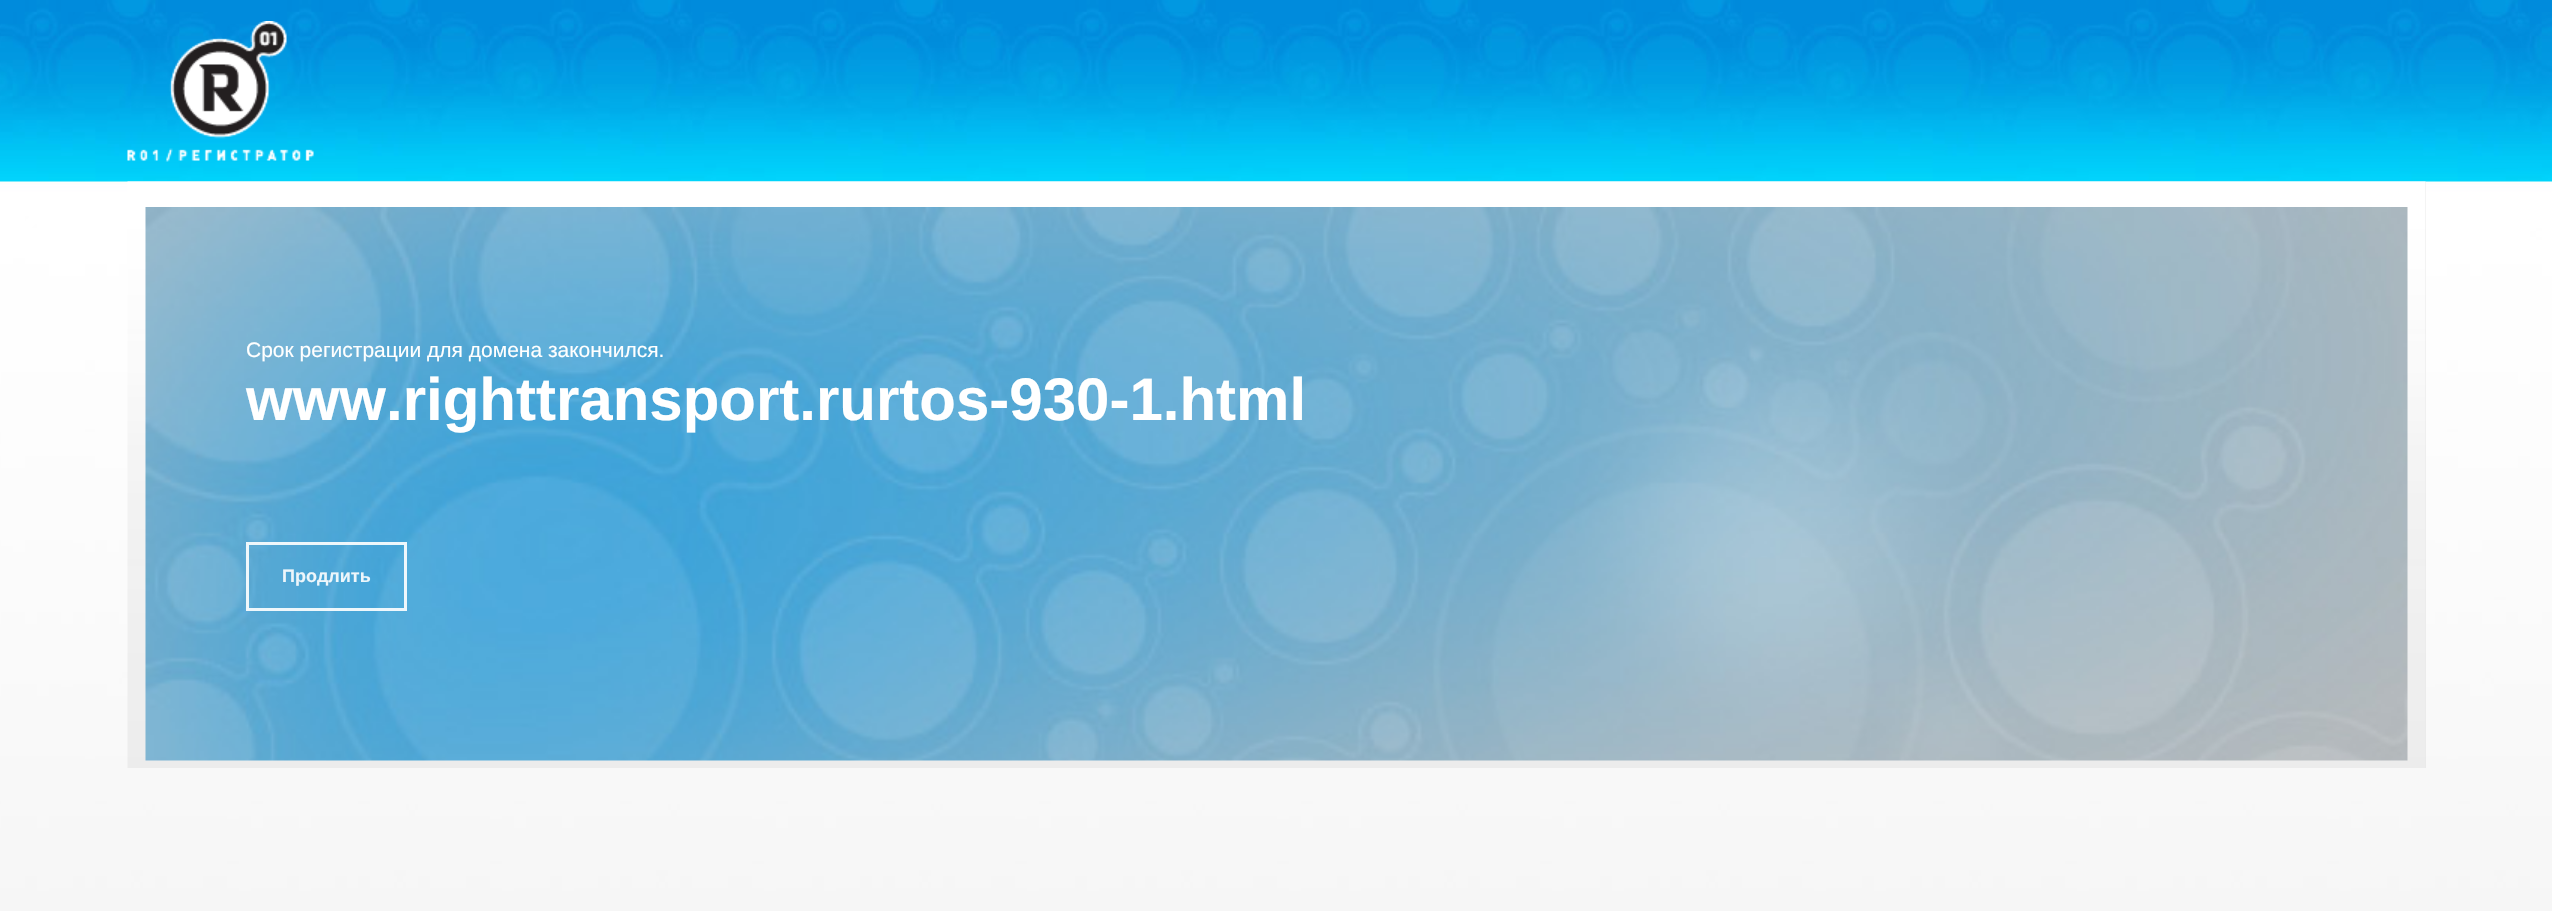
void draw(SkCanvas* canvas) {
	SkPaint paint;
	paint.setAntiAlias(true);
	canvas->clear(0xffffffff);
	canvas->drawImageRect(SkImages::DeferredFromEncodedData(SkData::MakeFromFileName("img1.png")), SkRect::MakeXYWH(0, 0, 2552, 911), SkSamplingOptions());
	canvas->drawImageRect(SkImages::DeferredFromEncodedData(SkData::MakeFromFileName("img2.png")), SkRect::MakeXYWH(127, 21, 187, 141), SkSamplingOptions());
	paint.setColor(0xffe9e9e9);
	canvas->drawRect(SkRect::MakeXYWH(2425, 182, 1, 586), paint);
	canvas->drawImageRect(SkImages::DeferredFromEncodedData(SkData::MakeFromFileName("img3.png")), SkRect::MakeXYWH(127, 181, 2299, 587), SkSamplingOptions());
	canvas->drawImageRect(SkImages::DeferredFromEncodedData(SkData::MakeFromFileName("img4.png")), SkRect::MakeXYWH(145, 207, 2263, 554), SkSamplingOptions());
	SkFont f1(fontMgr->matchFamilyStyle("Liberation Sans", SkFontStyle::Normal()), 21);
	f1.setSubpixel(true);
	paint.setColor(0xffffffff);
	canvas->drawString("Срок регистрации для домена закончился.", 246, 357, f1, paint);
	SkFont f2(fontMgr->matchFamilyStyle("Liberation Sans", SkFontStyle::Bold()), 60);
	f2.setSubpixel(true);
	canvas->drawString("www.righttransport.rurtos-930-1.html", 246, 420, f2, paint);
	paint.setStroke(true);
	paint.setStrokeWidth(3);
	paint.setColor(0xe6ffffff);
	canvas->drawRect(SkRect::MakeXYWH(247.5, 543.5, 158, 66), paint);
	SkFont f3(fontMgr->matchFamilyStyle("Liberation Sans", SkFontStyle::Bold()), 18);
	f3.setSubpixel(true);
	paint.setStroke(false);
	paint.setColor(0xffedf6fb);
	canvas->drawString("Продлить", 282, 582, f3, paint);
}
